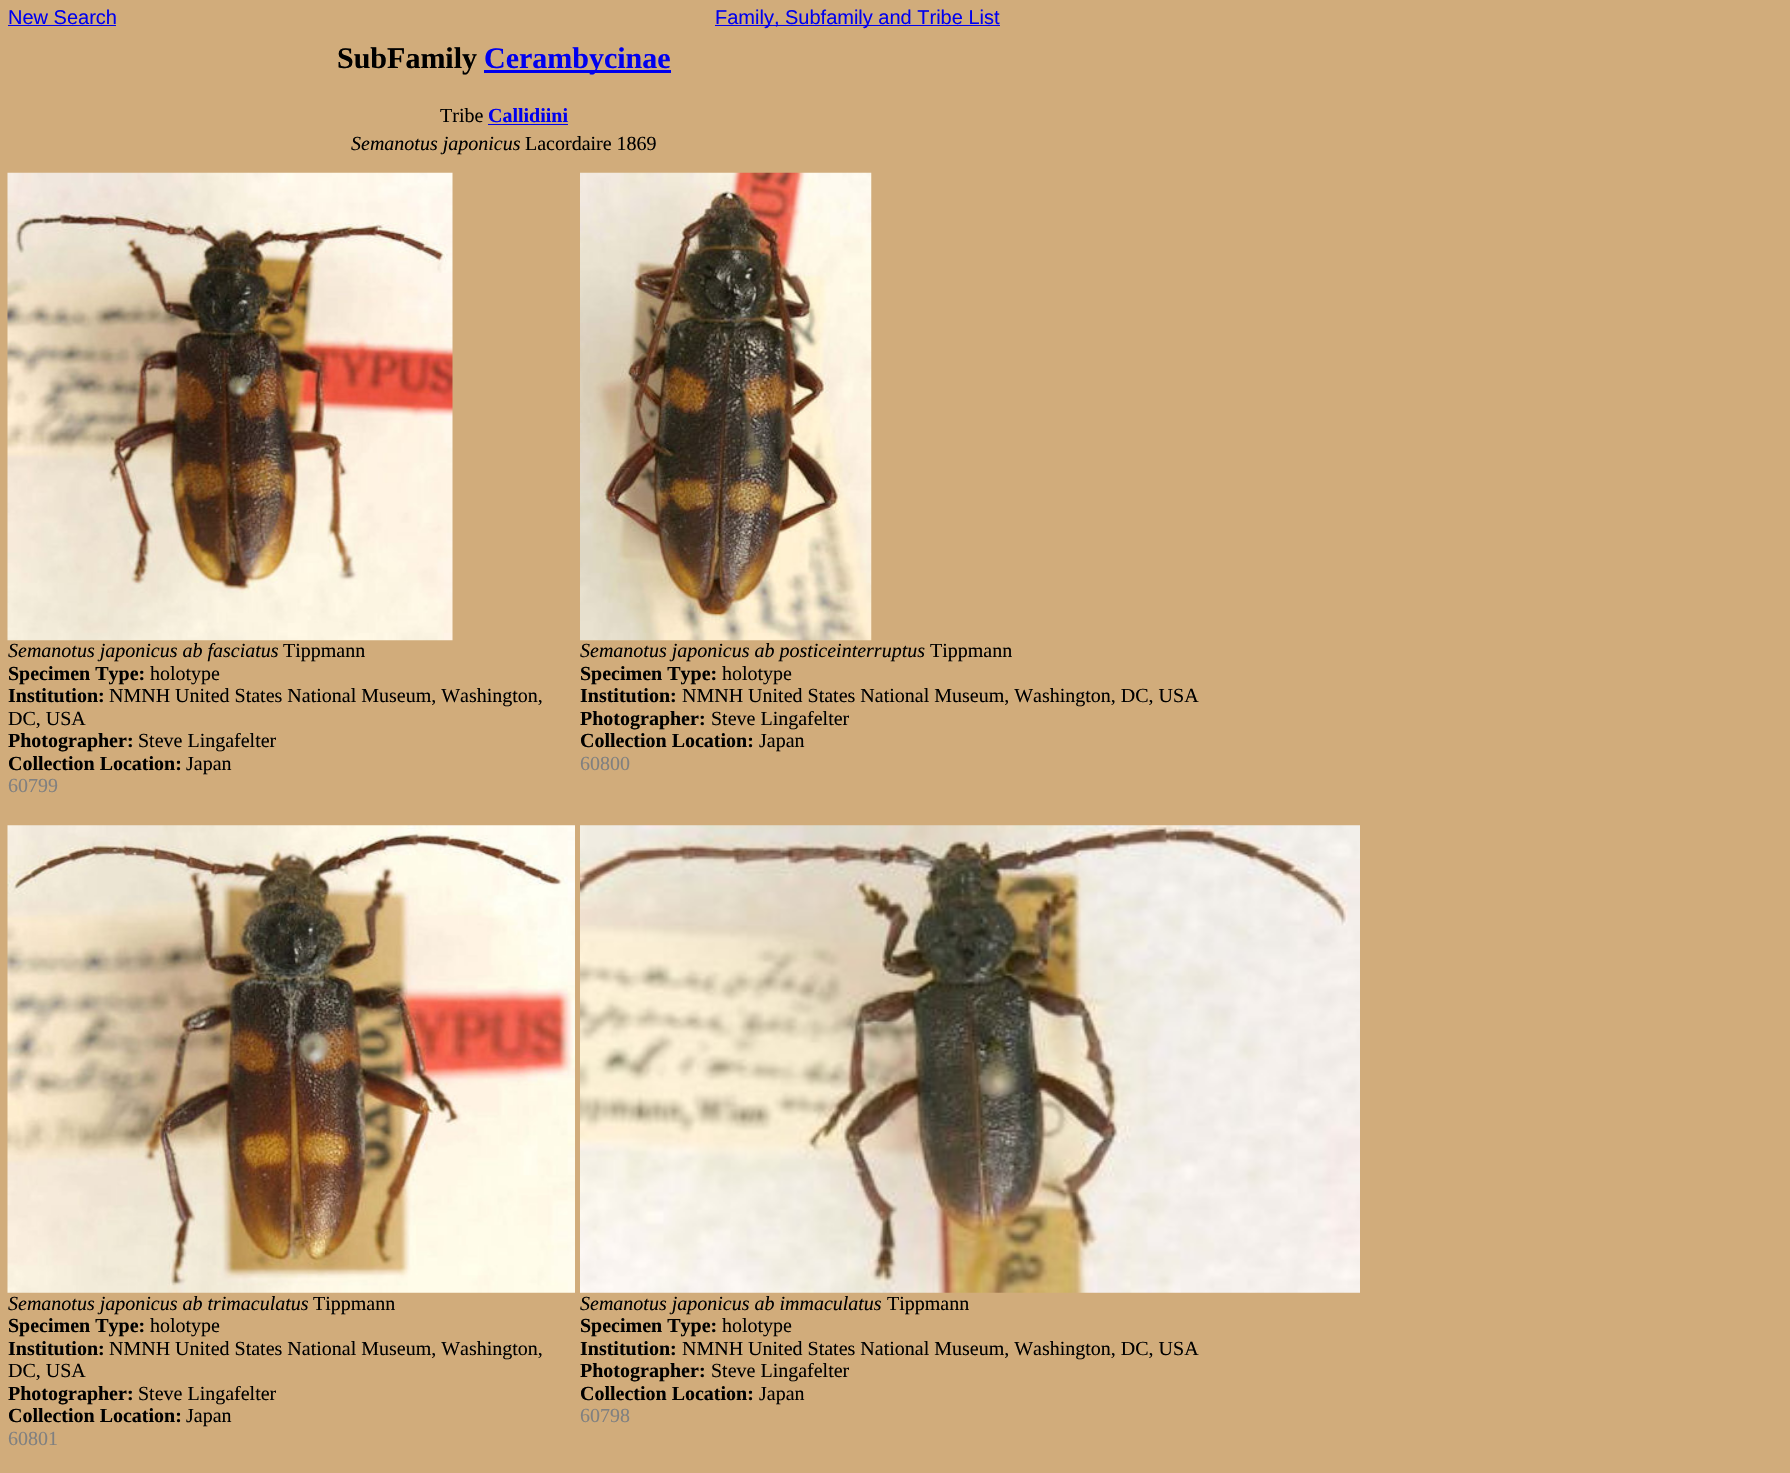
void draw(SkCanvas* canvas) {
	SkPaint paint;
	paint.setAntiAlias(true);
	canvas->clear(0xffd1ac7b);
	SkFont f1(fontMgr->matchFamilyStyle("Liberation Sans", SkFontStyle::Normal()), 20);
	f1.setSubpixel(true);
	paint.setColor(0xff0000ee);
	canvas->drawString("New Search", 8, 24, f1, paint);
	canvas->drawRect(SkRect::MakeXYWH(8, 25, 108, 1), paint);
	canvas->drawRect(SkRect::MakeXYWH(715, 25, 285, 1), paint);
	canvas->drawString("Family, Subfamily and Tribe List", 715, 24, f1, paint);
	SkFont f2(fontMgr->matchFamilyStyle("Liberation Serif", SkFontStyle::Bold()), 30);
	f2.setSubpixel(true);
	paint.setColor(0xff000000);
	canvas->drawString("SubFamily", 337, 68, f2, paint);
	paint.setColor(0xff0000ee);
	canvas->drawRect(SkRect::MakeXYWH(484, 70, 187, 3), paint);
	canvas->drawString("Cerambycinae", 484, 68, f2, paint);
	SkFont f3(fontMgr->matchFamilyStyle("Liberation Serif", SkFontStyle::Normal()), 20);
	f3.setSubpixel(true);
	paint.setColor(0xff000000);
	canvas->drawString("Tribe", 440, 122, f3, paint);
	SkFont f4(fontMgr->matchFamilyStyle("Liberation Serif", SkFontStyle::Bold()), 20);
	f4.setSubpixel(true);
	paint.setColor(0xff0000ee);
	canvas->drawString("Callidiini", 488, 122, f4, paint);
	canvas->drawRect(SkRect::MakeXYWH(488, 124, 80, 1), paint);
	SkFont f5(fontMgr->matchFamilyStyle("Liberation Serif", SkFontStyle::Italic()), 20);
	f5.setSubpixel(true);
	paint.setColor(0xff000000);
	canvas->drawString("Semanotus japonicus", 351, 150, f5, paint);
	canvas->drawString("Lacordaire 1869", 525, 150, f3, paint);
	canvas->drawImageRect(SkImages::DeferredFromEncodedData(SkData::MakeFromFileName("img1.png")), SkRect::MakeXYWH(7, 172, 446, 469), SkSamplingOptions());
	canvas->drawString("Semanotus japonicus ab fasciatus", 8, 657, f5, paint);
	canvas->drawString("Tippmann", 283, 657, f3, paint);
	canvas->drawString("Specimen Type:", 8, 680, f4, paint);
	canvas->drawString("holotype", 150, 680, f3, paint);
	canvas->drawString("Institution:", 8, 702, f4, paint);
	canvas->drawString("NMNH United States National Museum, Washington,", 109, 702, f3, paint);
	canvas->drawString("DC, USA", 8, 725, f3, paint);
	canvas->drawString("Photographer:", 8, 747, f4, paint);
	canvas->drawString("Steve Lingafelter", 138, 747, f3, paint);
	canvas->drawString("Collection Location:", 8, 770, f4, paint);
	canvas->drawString("Japan", 186, 770, f3, paint);
	paint.setColor(0xff808080);
	canvas->drawString("60799", 8, 792, f3, paint);
	canvas->drawImageRect(SkImages::DeferredFromEncodedData(SkData::MakeFromFileName("img2.png")), SkRect::MakeXYWH(580, 172, 292, 469), SkSamplingOptions());
	paint.setColor(0xff000000);
	canvas->drawString("Semanotus japonicus ab posticeinterruptus", 580, 657, f5, paint);
	canvas->drawString("Tippmann", 930, 657, f3, paint);
	canvas->drawString("Specimen Type:", 580, 680, f4, paint);
	canvas->drawString("holotype", 722, 680, f3, paint);
	canvas->drawString("Institution:", 580, 702, f4, paint);
	canvas->drawString("NMNH United States National Museum, Washington, DC, USA", 682, 702, f3, paint);
	canvas->drawString("Photographer:", 580, 725, f4, paint);
	canvas->drawString("Steve Lingafelter", 711, 725, f3, paint);
	canvas->drawString("Collection Location:", 580, 747, f4, paint);
	canvas->drawString("Japan", 759, 747, f3, paint);
	paint.setColor(0xff808080);
	canvas->drawString("60800", 580, 770, f3, paint);
	canvas->drawImageRect(SkImages::DeferredFromEncodedData(SkData::MakeFromFileName("img3.png")), SkRect::MakeXYWH(7, 825, 568, 468), SkSamplingOptions());
	paint.setColor(0xff000000);
	canvas->drawString("Semanotus japonicus ab trimaculatus", 8, 1310, f5, paint);
	canvas->drawString("Tippmann", 313, 1310, f3, paint);
	canvas->drawString("Specimen Type:", 8, 1332, f4, paint);
	canvas->drawString("holotype", 150, 1332, f3, paint);
	canvas->drawString("Institution:", 8, 1355, f4, paint);
	canvas->drawString("NMNH United States National Museum, Washington,", 109, 1355, f3, paint);
	canvas->drawString("DC, USA", 8, 1377, f3, paint);
	canvas->drawString("Photographer:", 8, 1400, f4, paint);
	canvas->drawString("Steve Lingafelter", 138, 1400, f3, paint);
	canvas->drawString("Collection Location:", 8, 1422, f4, paint);
	canvas->drawString("Japan", 186, 1422, f3, paint);
	paint.setColor(0xff808080);
	canvas->drawString("60801", 8, 1445, f3, paint);
	canvas->drawImageRect(SkImages::DeferredFromEncodedData(SkData::MakeFromFileName("img4.png")), SkRect::MakeXYWH(580, 825, 780, 468), SkSamplingOptions());
	paint.setColor(0xff000000);
	canvas->drawString("Semanotus japonicus ab immaculatus", 580, 1310, f5, paint);
	canvas->drawString("Tippmann", 887, 1310, f3, paint);
	canvas->drawString("Specimen Type:", 580, 1332, f4, paint);
	canvas->drawString("holotype", 722, 1332, f3, paint);
	canvas->drawString("Institution:", 580, 1355, f4, paint);
	canvas->drawString("NMNH United States National Museum, Washington, DC, USA", 682, 1355, f3, paint);
	canvas->drawString("Photographer:", 580, 1377, f4, paint);
	canvas->drawString("Steve Lingafelter", 711, 1377, f3, paint);
	canvas->drawString("Collection Location:", 580, 1400, f4, paint);
	canvas->drawString("Japan", 759, 1400, f3, paint);
	paint.setColor(0xff808080);
	canvas->drawString("60798", 580, 1422, f3, paint);
}
